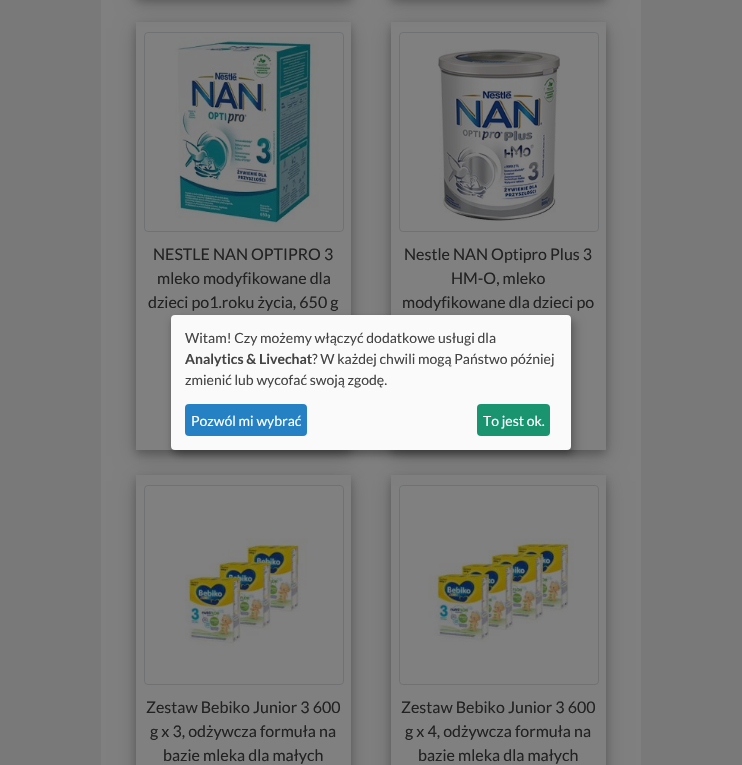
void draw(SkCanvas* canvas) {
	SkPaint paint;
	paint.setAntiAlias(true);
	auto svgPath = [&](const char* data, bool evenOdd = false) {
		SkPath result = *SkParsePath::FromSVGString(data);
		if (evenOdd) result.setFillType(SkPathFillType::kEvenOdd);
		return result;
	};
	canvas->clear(0xff797979);
	paint.setColor(0xff808080);
	canvas->drawRect(SkRect::MakeXYWH(101, 0, 540, 765), paint);
	paint.setColor(0x30000000);
	paint.setMaskFilter(SkMaskFilter::MakeBlur(kNormal_SkBlurStyle, 10));
	canvas->drawRect(SkRect::MakeXYWH(136, -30, 215, 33), paint);
	paint.setMaskFilter(nullptr);
	paint.setColor(0x33000000);
	paint.setMaskFilter(SkMaskFilter::MakeBlur(kNormal_SkBlurStyle, 4));
	canvas->drawRect(SkRect::MakeXYWH(136, -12, 215, 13), paint);
	paint.setMaskFilter(nullptr);
	paint.setColor(0x30000000);
	paint.setMaskFilter(SkMaskFilter::MakeBlur(kNormal_SkBlurStyle, 10));
	canvas->drawRect(SkRect::MakeXYWH(391, -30, 215, 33), paint);
	paint.setMaskFilter(nullptr);
	paint.setColor(0x33000000);
	paint.setMaskFilter(SkMaskFilter::MakeBlur(kNormal_SkBlurStyle, 4));
	canvas->drawRect(SkRect::MakeXYWH(391, -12, 215, 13), paint);
	paint.setMaskFilter(nullptr);
	canvas->save();
	canvas->clipPath(svgPath("M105 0H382V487H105ZM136 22H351V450H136Z", true), true);
	paint.setColor(0x30000000);
	paint.setMaskFilter(SkMaskFilter::MakeBlur(kNormal_SkBlurStyle, 10));
	canvas->drawRect(SkRect::MakeXYWH(136, 28, 215, 428), paint);
	paint.setMaskFilter(nullptr);
	canvas->restore();
	canvas->save();
	canvas->clipPath(svgPath("M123 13H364V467H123ZM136 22H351V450H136Z", true), true);
	paint.setColor(0x33000000);
	paint.setMaskFilter(SkMaskFilter::MakeBlur(kNormal_SkBlurStyle, 4));
	canvas->drawRect(SkRect::MakeXYWH(136, 26, 215, 428), paint);
	paint.setMaskFilter(nullptr);
	canvas->restore();
	paint.setStroke(true);
	paint.setStrokeWidth(1);
	paint.setColor(0xff6f7173);
	canvas->drawRoundRect(SkRect::MakeXYWH(144.5, 32.5, 199, 199), 3.5, 3.5, paint);
	canvas->drawImageRect(SkImages::DeferredFromEncodedData(SkData::MakeFromFileName("img1.png")), SkRect::MakeXYWH(175, 37, 144, 190), SkSamplingOptions());
	SkFont f1(fontMgr->matchFamilyStyle("Lato", SkFontStyle::Normal()), 16);
	f1.setSubpixel(true);
	paint.setStroke(false);
	paint.setColor(0xff222222);
	canvas->drawString("NESTLE NAN OPTIPRO 3", 153, 260, f1, paint);
	canvas->drawString("mleko modyfikowane dla", 157, 284, f1, paint);
	canvas->drawString("dzieci po1.roku życia, 650 g", 148, 308, f1, paint);
	canvas->save();
	canvas->clipPath(svgPath("M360 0H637V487H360ZM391 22H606V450H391Z", true), true);
	paint.setColor(0x30000000);
	paint.setMaskFilter(SkMaskFilter::MakeBlur(kNormal_SkBlurStyle, 10));
	canvas->drawRect(SkRect::MakeXYWH(391, 28, 215, 428), paint);
	paint.setMaskFilter(nullptr);
	canvas->restore();
	canvas->save();
	canvas->clipPath(svgPath("M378 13H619V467H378ZM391 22H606V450H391Z", true), true);
	paint.setColor(0x33000000);
	paint.setMaskFilter(SkMaskFilter::MakeBlur(kNormal_SkBlurStyle, 4));
	canvas->drawRect(SkRect::MakeXYWH(391, 26, 215, 428), paint);
	paint.setMaskFilter(nullptr);
	canvas->restore();
	paint.setStroke(true);
	paint.setColor(0xff6f7173);
	canvas->drawRoundRect(SkRect::MakeXYWH(399.5, 32.5, 199, 199), 3.5, 3.5, paint);
	canvas->drawImageRect(SkImages::DeferredFromEncodedData(SkData::MakeFromFileName("img2.png")), SkRect::MakeXYWH(438, 49, 122, 172), SkSamplingOptions());
	paint.setStroke(false);
	paint.setColor(0xff222222);
	canvas->drawString("Nestle NAN Optipro Plus 3", 404, 260, f1, paint);
	canvas->drawString("HM-O, mleko", 451, 284, f1, paint);
	canvas->drawString("modyfikowane dla dzieci po", 402, 308, f1, paint);
	canvas->save();
	canvas->clipPath(svgPath("M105 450H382V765H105ZM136 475H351V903H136Z", true), true);
	paint.setColor(0x30000000);
	paint.setMaskFilter(SkMaskFilter::MakeBlur(kNormal_SkBlurStyle, 10));
	canvas->drawRect(SkRect::MakeXYWH(136, 481, 215, 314), paint);
	paint.setMaskFilter(nullptr);
	canvas->restore();
	canvas->save();
	canvas->clipPath(svgPath("M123 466H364V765H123ZM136 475H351V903H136Z", true), true);
	paint.setColor(0x33000000);
	paint.setMaskFilter(SkMaskFilter::MakeBlur(kNormal_SkBlurStyle, 4));
	canvas->drawRect(SkRect::MakeXYWH(136, 479, 215, 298), paint);
	paint.setMaskFilter(nullptr);
	canvas->restore();
	paint.setStroke(true);
	paint.setColor(0xff6f7173);
	canvas->drawRoundRect(SkRect::MakeXYWH(144.5, 485.5, 199, 199), 3.5, 3.5, paint);
	canvas->drawImageRect(SkImages::DeferredFromEncodedData(SkData::MakeFromFileName("img3.png")), SkRect::MakeXYWH(185, 538, 123, 108), SkSamplingOptions());
	paint.setStroke(false);
	paint.setColor(0xff222222);
	canvas->drawString("Zestaw Bebiko Junior 3 600", 146, 713, f1, paint);
	canvas->drawString("g x 3, odżywcza formuła na", 150, 737, f1, paint);
	canvas->drawString("bazie mleka dla małych", 163, 761, f1, paint);
	canvas->save();
	canvas->clipPath(svgPath("M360 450H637V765H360ZM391 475H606V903H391Z", true), true);
	paint.setColor(0x30000000);
	paint.setMaskFilter(SkMaskFilter::MakeBlur(kNormal_SkBlurStyle, 10));
	canvas->drawRect(SkRect::MakeXYWH(391, 481, 215, 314), paint);
	paint.setMaskFilter(nullptr);
	canvas->restore();
	canvas->save();
	canvas->clipPath(svgPath("M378 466H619V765H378ZM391 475H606V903H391Z", true), true);
	paint.setColor(0x33000000);
	paint.setMaskFilter(SkMaskFilter::MakeBlur(kNormal_SkBlurStyle, 4));
	canvas->drawRect(SkRect::MakeXYWH(391, 479, 215, 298), paint);
	paint.setMaskFilter(nullptr);
	canvas->restore();
	paint.setStroke(true);
	paint.setColor(0xff6f7173);
	canvas->drawRoundRect(SkRect::MakeXYWH(399.5, 485.5, 199, 199), 3.5, 3.5, paint);
	canvas->drawImageRect(SkImages::DeferredFromEncodedData(SkData::MakeFromFileName("img4.png")), SkRect::MakeXYWH(428, 538, 146, 104), SkSamplingOptions());
	paint.setStroke(false);
	paint.setColor(0xff222222);
	canvas->drawString("Zestaw Bebiko Junior 3 600", 401, 713, f1, paint);
	canvas->drawString("g x 4, odżywcza formuła na", 405, 737, f1, paint);
	canvas->drawString("bazie mleka dla małych", 418, 761, f1, paint);
	paint.setColor(0x30000000);
	paint.setMaskFilter(SkMaskFilter::MakeBlur(kNormal_SkBlurStyle, 5));
	canvas->drawRoundRect(SkRect::MakeXYWH(176, 320, 400, 135), 4, 4, paint);
	paint.setMaskFilter(nullptr);
	paint.setColor(0x33000000);
	paint.setMaskFilter(SkMaskFilter::MakeBlur(kNormal_SkBlurStyle, 3));
	canvas->drawRoundRect(SkRect::MakeXYWH(171, 319, 400, 135), 4, 4, paint);
	paint.setMaskFilter(nullptr);
	paint.setColor(0xfffafafa);
	canvas->drawRoundRect(SkRect::MakeXYWH(171, 315, 400, 135), 4, 4, paint);
	SkFont f2(fontMgr->matchFamilyStyle("Lato", SkFontStyle::Normal()), 14);
	f2.setSubpixel(true);
	paint.setColor(0xff444444);
	canvas->drawString("Witam! Czy możemy włączyć dodatkowe usługi dla", 185, 343, f2, paint);
	SkFont f3(fontMgr->matchFamilyStyle("Lato", SkFontStyle::Bold()), 14);
	f3.setSubpixel(true);
	canvas->drawString("Analytics & Livechat", 185, 364, f3, paint);
	canvas->drawString("? W każdej chwili mogą Państwo później", 312, 364, f2, paint);
	canvas->drawString("zmienić lub wycofać swoją zgodę.", 185, 385, f2, paint);
	paint.setColor(0xff2581c4);
	canvas->drawRoundRect(SkRect::MakeXYWH(185, 404, 122, 32), 4, 4, paint);
	paint.setColor(0xffffffff);
	canvas->drawString("Pozwól mi wybrać", 191, 426, f2, paint);
	paint.setColor(0xff1a936f);
	canvas->drawRoundRect(SkRect::MakeXYWH(477, 404, 73, 32), 4, 4, paint);
	paint.setColor(0xffffffff);
	canvas->drawString("To jest ok.", 483, 426, f2, paint);
}
